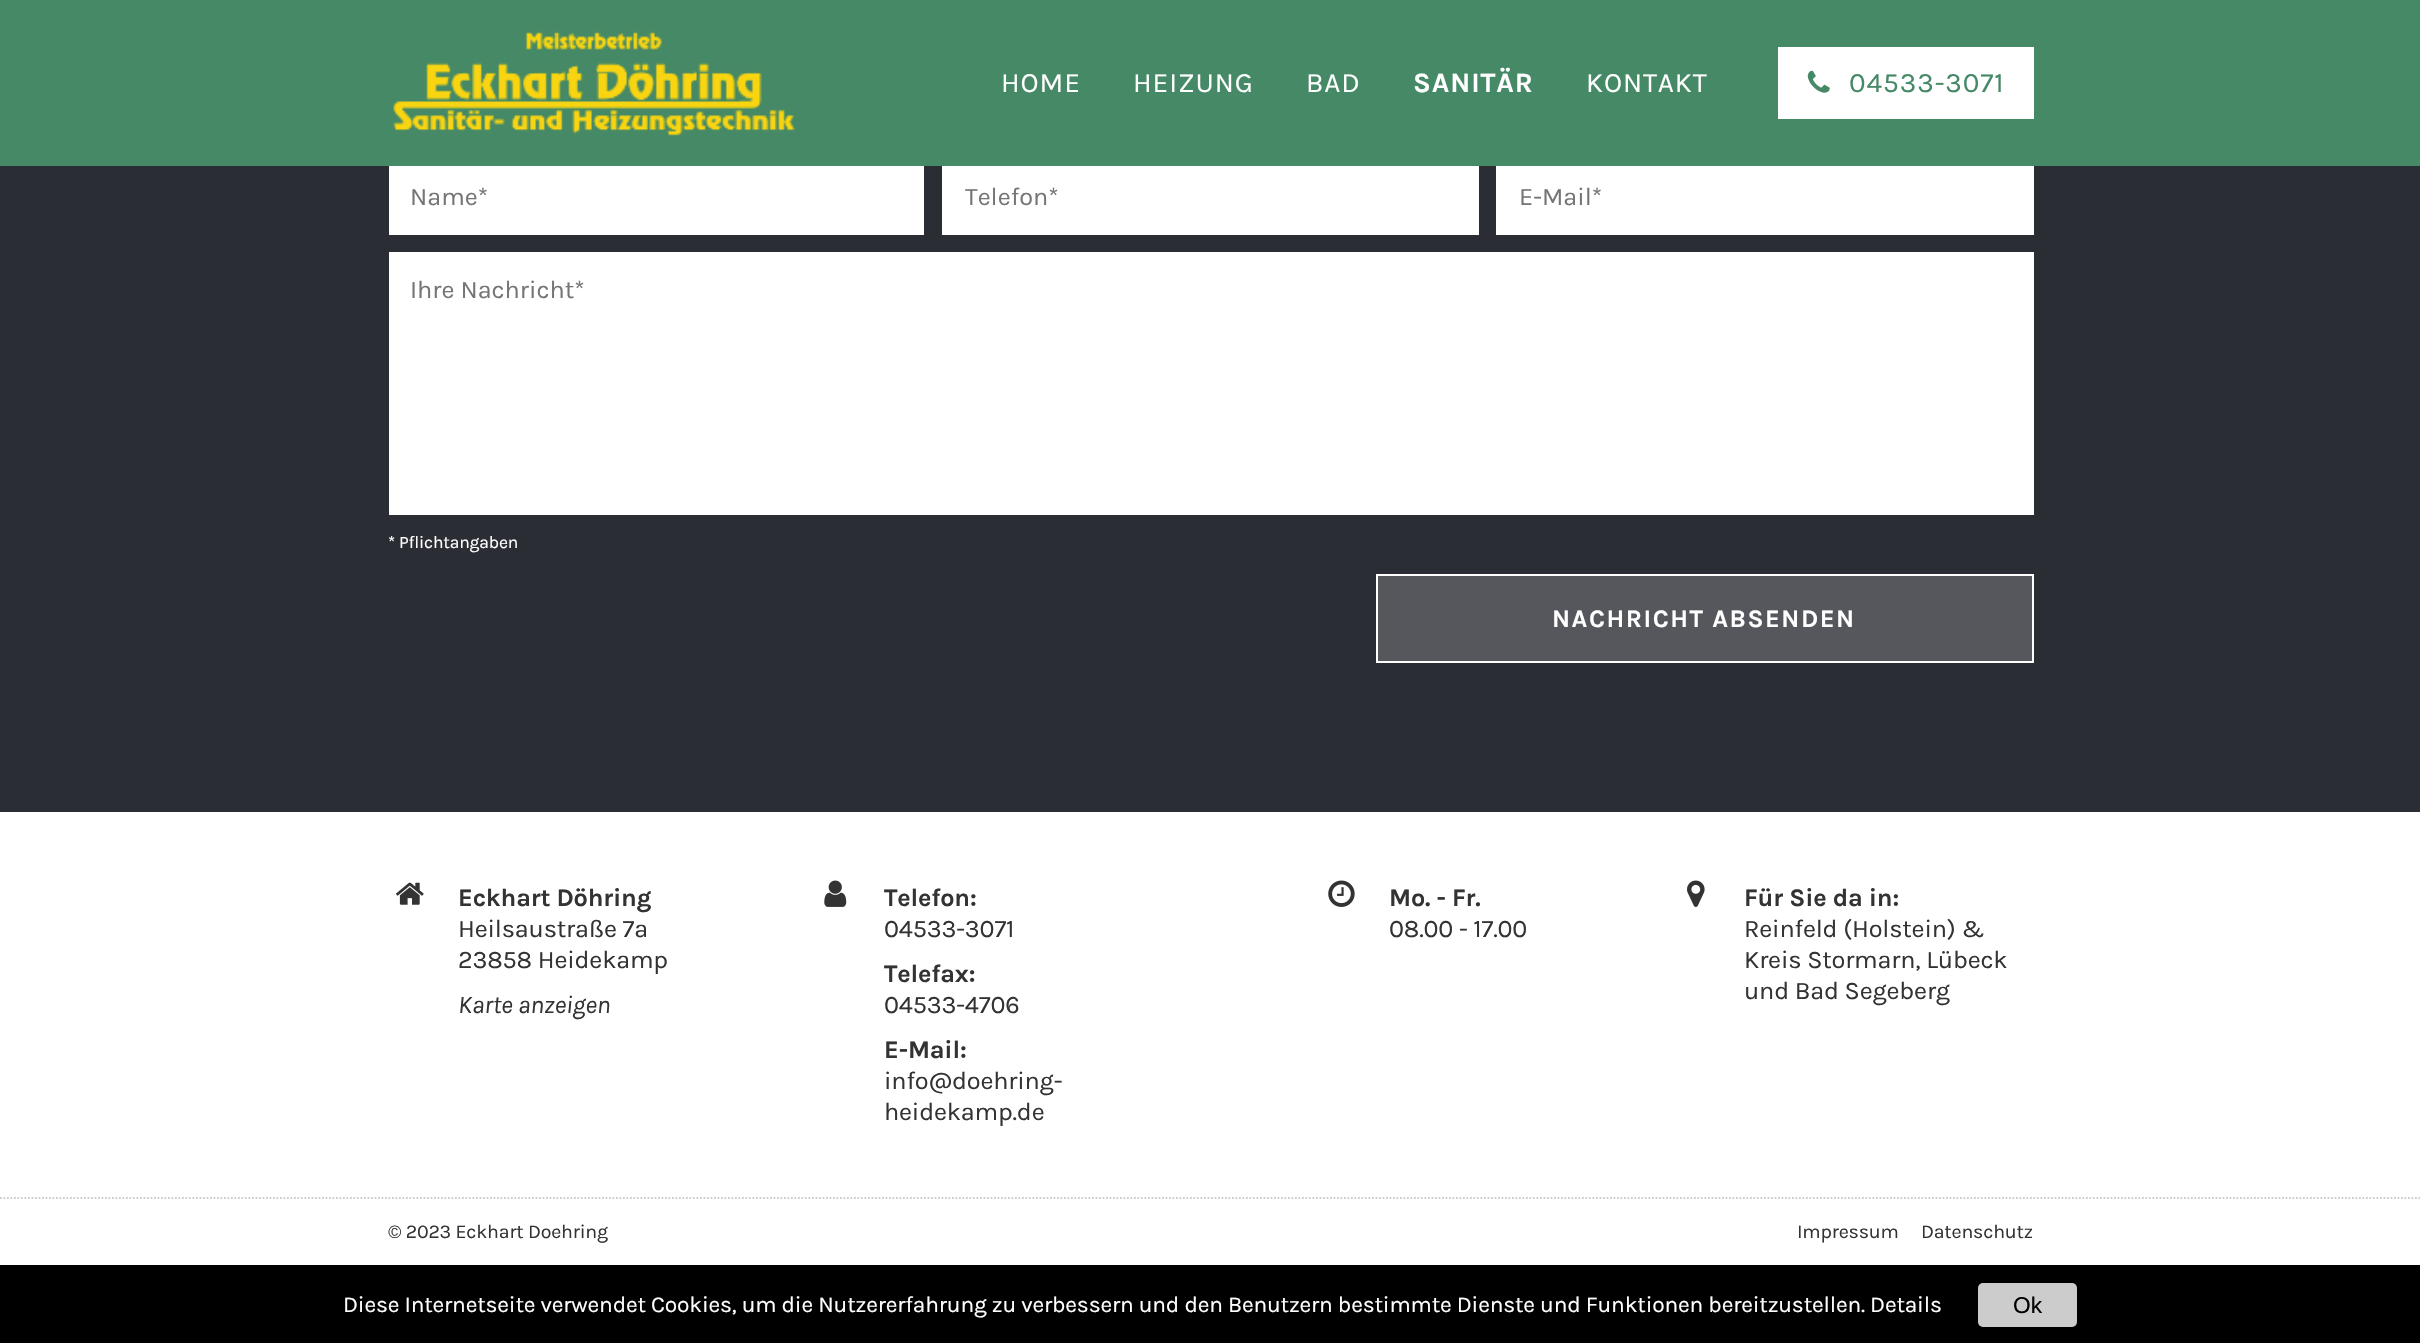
void draw(SkCanvas* canvas) {
	SkPaint paint;
	paint.setAntiAlias(true);
	auto spacedText = [&](const char* s, float x, float y, const SkFont& font, const SkPaint& ink, float letter, float word) {
		std::vector<SkGlyphID> glyphs(font.countText(s, strlen(s), SkTextEncoding::kUTF8));
		std::vector<float> xs(glyphs.size());
		font.textToGlyphs(s, strlen(s), SkTextEncoding::kUTF8, glyphs);
		font.getXPos(glyphs, xs, x);
		float extra = 0;
		for (size_t i = 0; i < glyphs.size(); i++) {
			xs[i] += extra;
			extra += letter + word * (glyphs[i] == font.unicharToGlyph(' '));
		}
		canvas->drawTextBlob(SkTextBlob::MakeFromPosHGlyphs(glyphs, xs, y, font), 0, 0, ink);
	};
	auto svgPath = [&](const char* data, bool evenOdd = false) {
		SkPath result = *SkParsePath::FromSVGString(data);
		if (evenOdd) result.setFillType(SkPathFillType::kEvenOdd);
		return result;
	};
	canvas->clear(0xffffffff);
	paint.setColor(0xff468966);
	canvas->drawRect(SkRect::MakeXYWH(0, 0, 2420, 166), paint);
	canvas->drawImageRect(SkImages::DeferredFromEncodedData(SkData::MakeFromFileName("img1.png")), SkRect::MakeXYWH(393, 31, 402, 105), SkSamplingOptions());
	SkFont f1(fontMgr->matchFamilyStyle("Karla", SkFontStyle::Normal()), 28);
	f1.setSubpixel(true);
	paint.setColor(0xffffffff);
	spacedText("HOME", 1001, 92, f1, paint, 0.9, 0);
	spacedText("HEIZUNG", 1133, 92, f1, paint, 0.9, 0);
	spacedText("BAD", 1306, 92, f1, paint, 0.9, 0);
	SkFont f2(fontMgr->matchFamilyStyle("Karla", SkFontStyle::Bold()), 28);
	f2.setSubpixel(true);
	spacedText("SANITÄR", 1413, 92, f2, paint, 0.9, 0);
	spacedText("KONTAKT", 1586, 92, f1, paint, 0.9, 0);
	canvas->drawRect(SkRect::MakeXYWH(1778, 47, 256, 72), paint);
	canvas->drawImageRect(SkImages::DeferredFromEncodedData(SkData::MakeFromFileName("img2.png")), SkRect::MakeXYWH(1807, 70, 23, 23), SkSamplingOptions());
	paint.setColor(0xff468966);
	spacedText("04533-3071", 1849, 92, f1, paint, 0.9, 0);
	paint.setColor(0xff2b2d34);
	canvas->drawRect(SkRect::MakeXYWH(0, 166, 2420, 646), paint);
	paint.setColor(0xffffffff);
	canvas->drawRect(SkRect::MakeXYWH(389, 166, 535, 69), paint);
	SkFont f3(fontMgr->matchFamilyStyle("Karla", SkFontStyle::Normal()), 25.25);
	f3.setSubpixel(true);
	paint.setColor(0xff757575);
	canvas->drawString("Name*", 410, 205, f3, paint);
	paint.setColor(0xffffffff);
	canvas->drawRect(SkRect::MakeXYWH(942, 166, 537, 69), paint);
	paint.setColor(0xff757575);
	canvas->drawString("Telefon*", 965, 205, f3, paint);
	paint.setColor(0xffffffff);
	canvas->drawRect(SkRect::MakeXYWH(1496, 166, 538, 69), paint);
	paint.setColor(0xff757575);
	canvas->drawString("E-Mail*", 1519, 205, f3, paint);
	paint.setColor(0xffffffff);
	canvas->drawRect(SkRect::MakeXYWH(389, 252, 1645, 263), paint);
	paint.setColor(0xff757575);
	canvas->drawString("Ihre Nachricht*", 410, 298, f3, paint);
	SkFont f4(fontMgr->matchFamilyStyle("Karla", SkFontStyle::Normal()), 17.5);
	f4.setSubpixel(true);
	paint.setColor(0xffffffff);
	spacedText("* Pflichtangaben", 388, 548, f4, paint, -0.18, 0);
	paint.setColor(0xff55575d);
	canvas->drawRect(SkRect::MakeXYWH(1377, 575, 656, 87), paint);
	paint.setStroke(true);
	paint.setStrokeWidth(2);
	paint.setColor(0xffffffff);
	canvas->drawRect(SkRect::MakeXYWH(1377, 575, 656, 87), paint);
	SkFont f5(fontMgr->matchFamilyStyle("Karla", SkFontStyle::Bold()), 25.25);
	f5.setSubpixel(true);
	paint.setStroke(false);
	spacedText("NACHRICHT ABSENDEN", 1552, 627, f5, paint, 1.5, 0);
	paint.setStroke(true);
	paint.setStrokeWidth(1.8);
	paint.setColor(0xffcdcdcd);
	paint.setPathEffect(SkDashPathEffect::Make({{1.75f, 1.75f}}, 0));
	canvas->drawPath(svgPath("M0 1198H2420"), paint);
	paint.setPathEffect(nullptr);
	canvas->drawImageRect(SkImages::DeferredFromEncodedData(SkData::MakeFromFileName("img3.png")), SkRect::MakeXYWH(396, 882, 28, 23), SkSamplingOptions());
	paint.setStroke(false);
	paint.setColor(0xff333333);
	spacedText("Eckhart Döhring", 458, 906, f5, paint, -0.18, 0);
	spacedText("Heilsaustraße 7a", 458, 937, f3, paint, -0.18, 0);
	spacedText("23858 Heidekamp", 458, 968, f3, paint, -0.18, 0);
	SkFont f6(fontMgr->matchFamilyStyle("Karla", SkFontStyle::Italic()), 25.25);
	f6.setSubpixel(true);
	spacedText("Karte anzeigen", 458, 1013, f6, paint, -0.18, 0);
	canvas->drawImageRect(SkImages::DeferredFromEncodedData(SkData::MakeFromFileName("img4.png")), SkRect::MakeXYWH(824, 880, 23, 27), SkSamplingOptions());
	spacedText("Telefon:", 884, 906, f5, paint, -0.18, 0);
	spacedText("04533-3071", 884, 937, f3, paint, -0.18, 0);
	spacedText("Telefax:", 884, 982, f5, paint, -0.18, 0);
	spacedText("04533-4706", 884, 1013, f3, paint, -0.18, 0);
	spacedText("E-Mail:", 884, 1058, f5, paint, -0.18, 0);
	spacedText("info@doehring-", 884, 1089, f3, paint, -0.18, 0);
	spacedText("heidekamp.de", 884, 1120, f3, paint, -0.18, 0);
	canvas->drawImageRect(SkImages::DeferredFromEncodedData(SkData::MakeFromFileName("img5.png")), SkRect::MakeXYWH(1328, 880, 27, 27), SkSamplingOptions());
	spacedText("Mo. - Fr.", 1389, 906, f5, paint, -0.18, 0);
	spacedText("08.00 - 17.00", 1389, 937, f3, paint, -0.18, 0);
	canvas->drawImageRect(SkImages::DeferredFromEncodedData(SkData::MakeFromFileName("img6.png")), SkRect::MakeXYWH(1687, 880, 18, 27), SkSamplingOptions());
	spacedText("Für Sie da in:", 1744, 906, f5, paint, -0.18, 0);
	spacedText("Reinfeld (Holstein) &", 1744, 937, f3, paint, -0.18, 0);
	spacedText("Kreis Stormarn, Lübeck", 1744, 968, f3, paint, -0.18, 0);
	spacedText("und Bad Segeberg", 1744, 999, f3, paint, -0.18, 0);
	SkFont f7(fontMgr->matchFamilyStyle("Karla", SkFontStyle::Normal()), 19.6);
	f7.setSubpixel(true);
	spacedText("© 2023 Eckhart Doehring", 388, 1238, f7, paint, -0.18, 0);
	spacedText("Impressum", 1797, 1238, f7, paint, -0.18, 0);
	spacedText("Datenschutz", 1921, 1238, f7, paint, -0.18, 0);
	paint.setColor(0xff000000);
	canvas->drawRect(SkRect::MakeXYWH(0, 1265, 2420, 78), paint);
	SkFont f8(fontMgr->matchFamilyStyle("Karla", SkFontStyle::Normal()), 22.75);
	f8.setSubpixel(true);
	paint.setColor(0xffffffff);
	spacedText("Diese Internetseite verwendet Cookies, um die Nutzererfahrung zu verbessern und den Benutzern bestimmte Dienste und Funktionen bereitzustellen. Details", 343, 1312, f8, paint, -0.18, 0);
	paint.setColor(0xffcccccc);
	canvas->drawRoundRect(SkRect::MakeXYWH(1978, 1283, 99, 44), 5, 5, paint);
	SkFont f9(fontMgr->matchFamilyStyle("Liberation Sans", SkFontStyle::Normal()), 22.75);
	f9.setSubpixel(true);
	paint.setColor(0xff000000);
	canvas->drawString("Ok", 2013, 1313, f9, paint);
}
